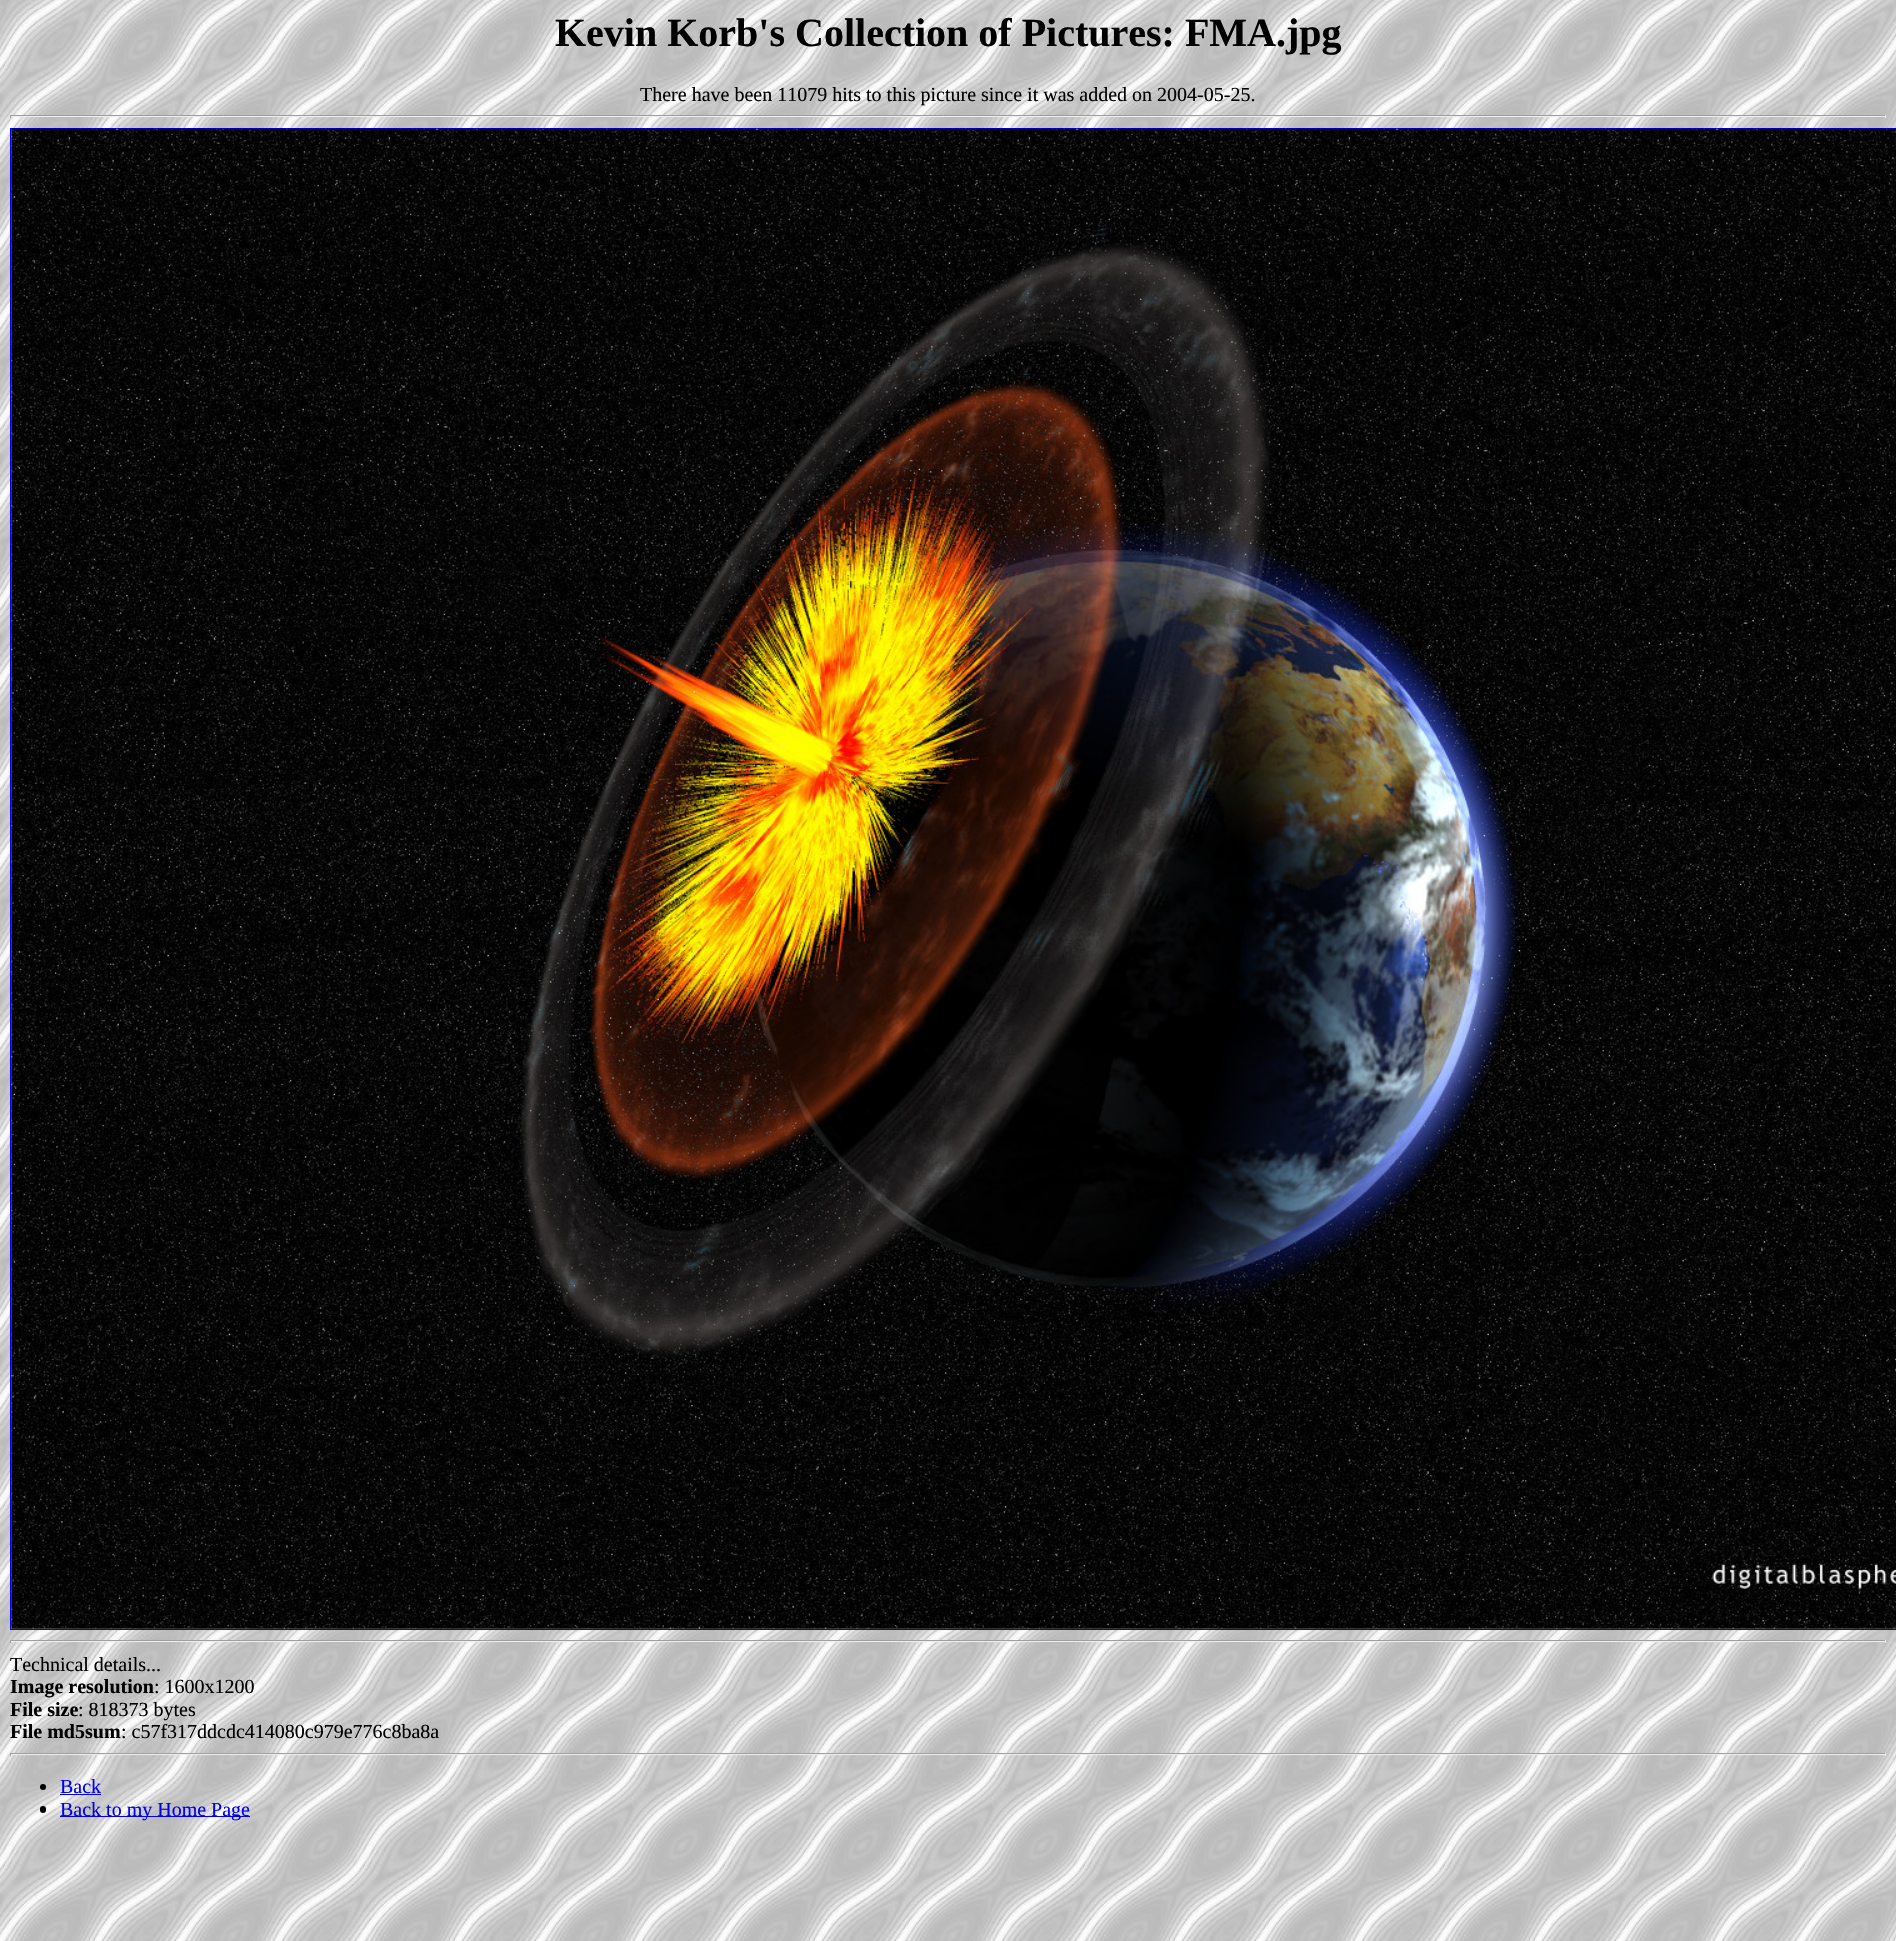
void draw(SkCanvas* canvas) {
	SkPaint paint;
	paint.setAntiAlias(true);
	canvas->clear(0xffffffff);
	canvas->drawImageRect(SkImages::DeferredFromEncodedData(SkData::MakeFromFileName("img1.png")), SkRect::MakeXYWH(0, 0, 1896, 1941), SkSamplingOptions());
	SkFont f1(fontMgr->matchFamilyStyle("Liberation Serif", SkFontStyle::Bold()), 40);
	f1.setSubpixel(true);
	paint.setColor(0xff000000);
	canvas->drawString("Kevin Korb's Collection of Pictures: FMA.jpg", 555, 46, f1, paint);
	SkFont f2(fontMgr->matchFamilyStyle("Liberation Serif", SkFontStyle::Normal()), 20);
	f2.setSubpixel(true);
	canvas->drawString("There have been 11079 hits to this picture since it was added on 2004-05-25.", 640, 101, f2, paint);
	paint.setColor(0xff9f9f9f);
	canvas->drawRect(SkRect::MakeXYWH(10, 115, 1876, 1), paint);
	paint.setColor(0xffeeeeee);
	canvas->drawRect(SkRect::MakeXYWH(1885, 115, 1, 3), paint);
	canvas->drawRect(SkRect::MakeXYWH(10, 116, 1876, 1), paint);
	paint.setColor(0xff9f9f9f);
	canvas->drawRect(SkRect::MakeXYWH(10, 115, 1, 3), paint);
	paint.setStroke(true);
	paint.setStrokeWidth(1);
	paint.setColor(0xff0000ee);
	canvas->drawRect(SkRect::MakeXYWH(10.5, 128.5, 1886, 1501), paint);
	canvas->drawImageRect(SkImages::DeferredFromEncodedData(SkData::MakeFromFileName("img2.png")), SkRect::MakeXYWH(11, 128, 1885, 1501), SkSamplingOptions());
	paint.setStroke(false);
	paint.setColor(0xff9f9f9f);
	canvas->drawRect(SkRect::MakeXYWH(10, 1640, 1876, 1), paint);
	paint.setColor(0xffeeeeee);
	canvas->drawRect(SkRect::MakeXYWH(1885, 1640, 1, 3), paint);
	canvas->drawRect(SkRect::MakeXYWH(10, 1641, 1876, 1), paint);
	paint.setColor(0xff9f9f9f);
	canvas->drawRect(SkRect::MakeXYWH(10, 1640, 1, 3), paint);
	paint.setColor(0xff000000);
	canvas->drawString("Technical details...", 10, 1671, f2, paint);
	SkFont f3(fontMgr->matchFamilyStyle("Liberation Serif", SkFontStyle::Bold()), 20);
	f3.setSubpixel(true);
	canvas->drawString("Image resolution", 10, 1693, f3, paint);
	canvas->drawString(": 1600x1200", 154, 1693, f2, paint);
	canvas->drawString("File size", 10, 1716, f3, paint);
	canvas->drawString(": 818373 bytes", 78, 1716, f2, paint);
	canvas->drawString("File md5sum", 10, 1738, f3, paint);
	canvas->drawString(": c57f317ddcdc414080c979e776c8ba8a", 121, 1738, f2, paint);
	paint.setColor(0xff9f9f9f);
	canvas->drawRect(SkRect::MakeXYWH(10, 1753, 1876, 1), paint);
	paint.setColor(0xffeeeeee);
	canvas->drawRect(SkRect::MakeXYWH(1885, 1753, 1, 3), paint);
	canvas->drawRect(SkRect::MakeXYWH(10, 1754, 1876, 1), paint);
	paint.setColor(0xff9f9f9f);
	canvas->drawRect(SkRect::MakeXYWH(10, 1753, 1, 3), paint);
	paint.setColor(0xff000000);
	canvas->drawCircle(43, 1787, 3, paint);
	paint.setColor(0xff0000ee);
	canvas->drawString("Back", 60, 1793, f2, paint);
	canvas->drawRect(SkRect::MakeXYWH(60, 1794, 41, 1), paint);
	paint.setColor(0xff000000);
	canvas->drawRoundRect(SkRect::MakeXYWH(40, 1806, 6, 7), 3, 3, paint);
	paint.setColor(0xff0000ee);
	canvas->drawRect(SkRect::MakeXYWH(60, 1816, 190, 1), paint);
	canvas->drawString("Back to my Home Page", 60, 1816, f2, paint);
}
